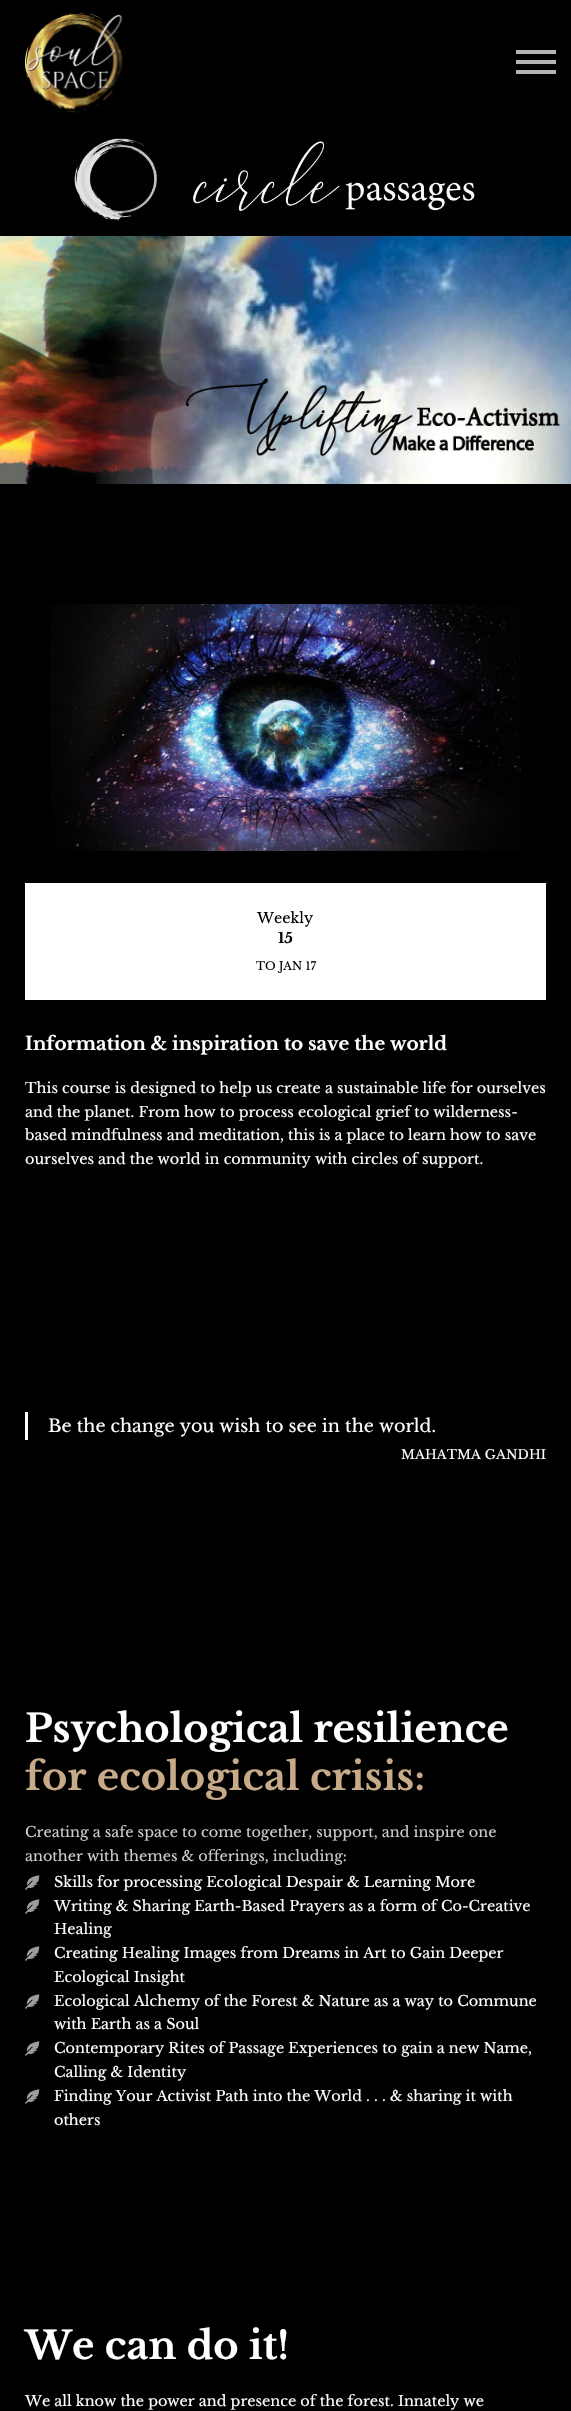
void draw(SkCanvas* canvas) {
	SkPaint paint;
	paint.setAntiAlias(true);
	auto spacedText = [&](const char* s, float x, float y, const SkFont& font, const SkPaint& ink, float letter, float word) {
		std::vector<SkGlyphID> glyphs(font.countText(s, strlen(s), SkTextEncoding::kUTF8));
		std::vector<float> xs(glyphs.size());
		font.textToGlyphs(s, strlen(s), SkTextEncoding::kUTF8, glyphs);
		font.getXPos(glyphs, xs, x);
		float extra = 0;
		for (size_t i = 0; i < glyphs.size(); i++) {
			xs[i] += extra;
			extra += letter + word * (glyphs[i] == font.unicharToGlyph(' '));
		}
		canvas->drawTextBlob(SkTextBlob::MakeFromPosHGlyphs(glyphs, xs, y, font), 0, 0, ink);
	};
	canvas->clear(0xff000000);
	canvas->drawImageRect(SkImages::DeferredFromEncodedData(SkData::MakeFromFileName("img1.png")), SkRect::MakeXYWH(25, 10, 100, 103), SkSamplingOptions());
	paint.setColor(0xffb4b4b4);
	canvas->drawRect(SkRect::MakeXYWH(516, 70, 40, 4), paint);
	canvas->drawRect(SkRect::MakeXYWH(516, 50, 40, 4), paint);
	canvas->drawRect(SkRect::MakeXYWH(516, 60, 40, 4), paint);
	canvas->drawImageRect(SkImages::DeferredFromEncodedData(SkData::MakeFromFileName("img2.png")), SkRect::MakeXYWH(0, 122, 571, 114), SkSamplingOptions());
	canvas->drawImageRect(SkImages::DeferredFromEncodedData(SkData::MakeFromFileName("img3.png")), SkRect::MakeXYWH(0, 236, 571, 248), SkSamplingOptions());
	canvas->drawImageRect(SkImages::DeferredFromEncodedData(SkData::MakeFromFileName("img4.png")), SkRect::MakeXYWH(50, 604, 471, 247), SkSamplingOptions());
	paint.setColor(0xffffffff);
	canvas->drawRect(SkRect::MakeXYWH(25, 883, 521, 117), paint);
	SkFont f1(fontMgr->matchFamilyStyle("Libre Baskerville", SkFontStyle::Normal()), 14.4);
	f1.setSubpixel(true);
	paint.setColor(0xff000000);
	canvas->drawString("Weekly", 257, 923, f1, paint);
	SkFont f2(fontMgr->matchFamilyStyle("Libre Baskerville", SkFontStyle::Bold()), 14.4);
	f2.setSubpixel(true);
	canvas->drawString("15", 278, 943, f2, paint);
	SkFont f3(fontMgr->matchFamilyStyle("Libre Baskerville", SkFontStyle::Normal()), 11.25);
	f3.setSubpixel(true);
	canvas->drawString("TO JAN 17", 256, 970, f3, paint);
	SkFont f4(fontMgr->matchFamilyStyle("Libre Baskerville", SkFontStyle::Bold()), 18.4);
	f4.setSubpixel(true);
	paint.setColor(0xffffffff);
	canvas->drawString("Information & inspiration to save the world", 25, 1050, f4, paint);
	canvas->drawString("This course is designed to help us create a sustainable life for ourselves", 25, 1093, f1, paint);
	canvas->drawString("and the planet. From how to process ecological grief to wilderness-", 25, 1117, f1, paint);
	canvas->drawString("based mindfulness and meditation, this is a place to learn how to save", 25, 1140, f1, paint);
	canvas->drawString("ourselves and the world in community with circles of support.", 25, 1164, f1, paint);
	canvas->drawRect(SkRect::MakeXYWH(25, 1412, 3, 28), paint);
	SkFont f5(fontMgr->matchFamilyStyle("Libre Baskerville", SkFontStyle::Normal()), 17.6);
	f5.setSubpixel(true);
	canvas->drawString("Be the change you wish to see in the world.", 48, 1432, f5, paint);
	SkFont f6(fontMgr->matchFamilyStyle("Libre Baskerville", SkFontStyle::Normal()), 12.75);
	f6.setSubpixel(true);
	spacedText("MAHATMA GANDHI", 401, 1459, f6, paint, 0.1, 0);
	SkFont f7(fontMgr->matchFamilyStyle("Libre Baskerville", SkFontStyle::Bold()), 38.4);
	f7.setSubpixel(true);
	canvas->drawString("Psychological resilience", 25, 1742, f7, paint);
	paint.setColor(0xffc7aa87);
	canvas->drawString("for ecological crisis:", 25, 1790, f7, paint);
	paint.setColor(0xffcccccc);
	canvas->drawString("Creating a safe space to come together, support, and inspire one", 25, 1837, f1, paint);
	canvas->drawString("another with themes & offerings, including:", 25, 1861, f1, paint);
	canvas->drawImageRect(SkImages::DeferredFromEncodedData(SkData::MakeFromFileName("img5.png")), SkRect::MakeXYWH(25, 1875, 15, 15), SkSamplingOptions());
	paint.setColor(0xffffffff);
	canvas->drawString("Skills for processing Ecological Despair & Learning More", 54, 1887, f1, paint);
	canvas->drawImageRect(SkImages::DeferredFromEncodedData(SkData::MakeFromFileName("img5.png")), SkRect::MakeXYWH(25, 1899, 15, 15), SkSamplingOptions());
	canvas->drawString("Writing & Sharing Earth-Based Prayers as a form of Co-Creative", 54, 1911, f1, paint);
	canvas->drawString("Healing", 54, 1934, f1, paint);
	canvas->drawImageRect(SkImages::DeferredFromEncodedData(SkData::MakeFromFileName("img5.png")), SkRect::MakeXYWH(25, 1946, 15, 15), SkSamplingOptions());
	canvas->drawString("Creating Healing Images from Dreams in Art to Gain Deeper", 54, 1958, f1, paint);
	canvas->drawString("Ecological Insight", 54, 1982, f1, paint);
	canvas->drawImageRect(SkImages::DeferredFromEncodedData(SkData::MakeFromFileName("img5.png")), SkRect::MakeXYWH(25, 1994, 15, 15), SkSamplingOptions());
	canvas->drawString("Ecological Alchemy of the Forest & Nature as a way to Commune", 54, 2006, f1, paint);
	canvas->drawString("with Earth as a Soul", 54, 2029, f1, paint);
	canvas->drawImageRect(SkImages::DeferredFromEncodedData(SkData::MakeFromFileName("img5.png")), SkRect::MakeXYWH(25, 2041, 15, 15), SkSamplingOptions());
	canvas->drawString("Contemporary Rites of Passage Experiences to gain a new Name,", 54, 2053, f1, paint);
	canvas->drawString("Calling & Identity", 54, 2077, f1, paint);
	canvas->drawImageRect(SkImages::DeferredFromEncodedData(SkData::MakeFromFileName("img5.png")), SkRect::MakeXYWH(25, 2089, 15, 15), SkSamplingOptions());
	canvas->drawString("Finding Your Activist Path into the World . . . & sharing it with", 54, 2101, f1, paint);
	canvas->drawString("others", 54, 2125, f1, paint);
	canvas->drawString("We can do it!", 25, 2359, f7, paint);
	canvas->drawString("We all know the power and presence of the forest. Innately we", 25, 2406, f1, paint);
}
